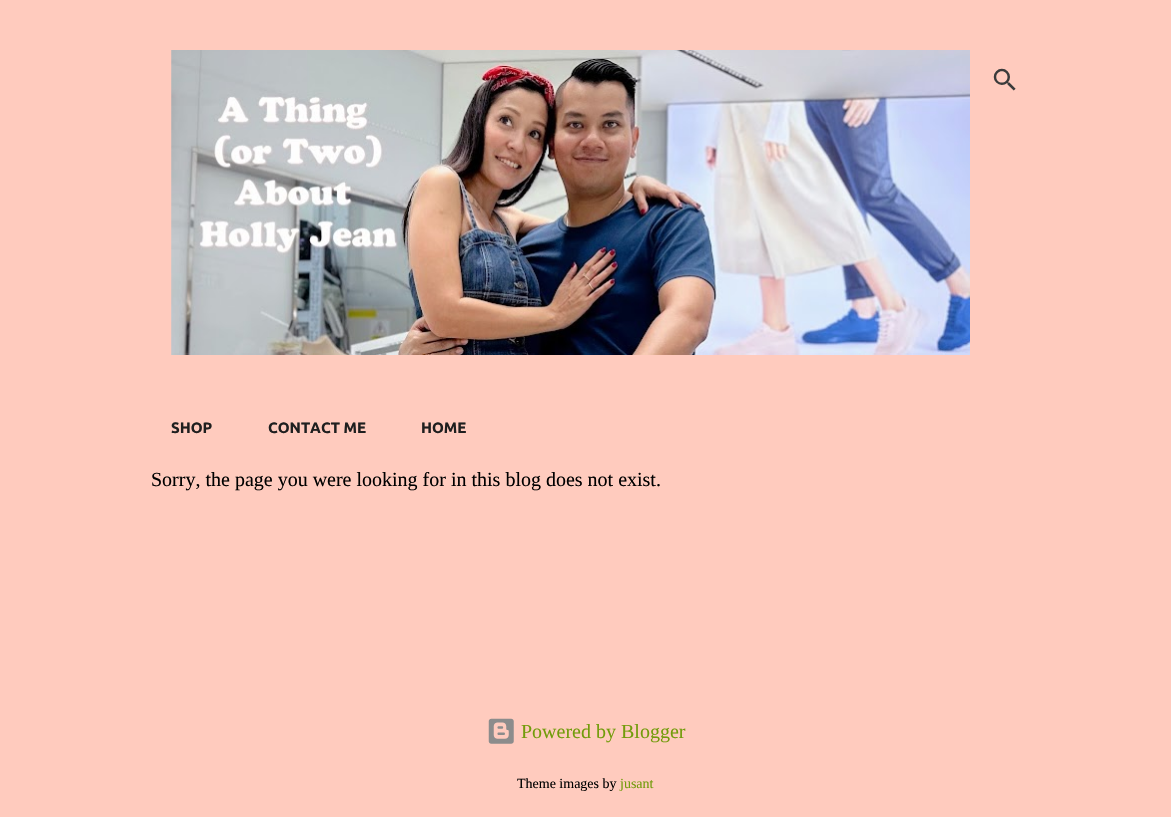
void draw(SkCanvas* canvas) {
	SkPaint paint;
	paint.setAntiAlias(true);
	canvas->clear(0xffffcbbe);
	canvas->drawImageRect(SkImages::DeferredFromEncodedData(SkData::MakeFromFileName("img1.png")), SkRect::MakeXYWH(171, 50, 799, 305), SkSamplingOptions());
	canvas->drawImageRect(SkImages::DeferredFromEncodedData(SkData::MakeFromFileName("img2.png")), SkRect::MakeXYWH(993, 68, 23, 23), SkSamplingOptions());
	SkFont f1(fontMgr->matchFamilyStyle("Ubuntu", SkFontStyle::Bold()), 15);
	f1.setSubpixel(true);
	paint.setColor(0xff1f1f1f);
	canvas->drawString("SHOP", 171, 433, f1, paint);
	canvas->drawString("CONTACT ME", 268, 433, f1, paint);
	canvas->drawString("HOME", 421, 433, f1, paint);
	SkFont f2(fontMgr->matchFamilyStyle("Liberation Serif", SkFontStyle::Normal()), 20);
	f2.setSubpixel(true);
	paint.setColor(0xff000000);
	canvas->drawString("Sorry, the page you were looking for in this blog does not exist.", 151, 486, f2, paint);
	canvas->drawImageRect(SkImages::DeferredFromEncodedData(SkData::MakeFromFileName("img3.png")), SkRect::MakeXYWH(488, 718, 26, 26), SkSamplingOptions());
	paint.setColor(0xff729c0b);
	canvas->drawString("Powered by Blogger", 521, 738, f2, paint);
	SkFont f3(fontMgr->matchFamilyStyle("Liberation Serif", SkFontStyle::Normal()), 14);
	f3.setSubpixel(true);
	paint.setColor(0xff000000);
	canvas->drawString("Theme images by", 517, 788, f3, paint);
	paint.setColor(0xff729c0b);
	canvas->drawString("jusant", 620, 788, f3, paint);
}
